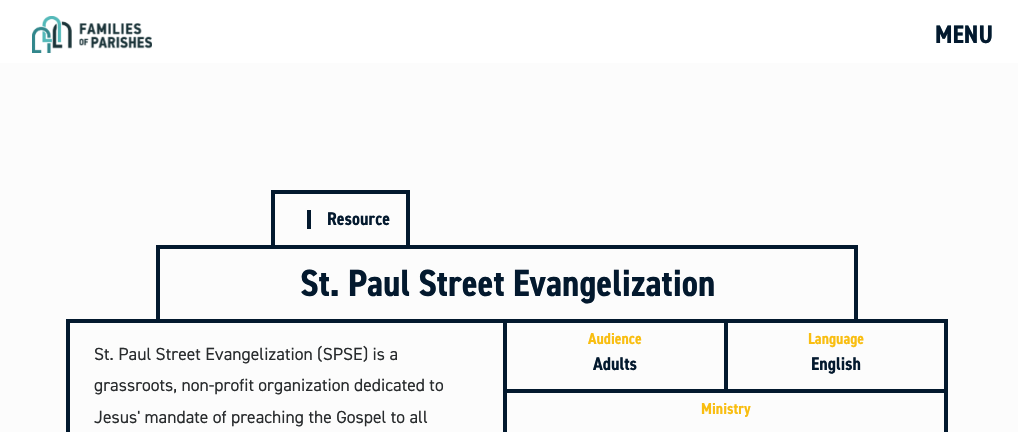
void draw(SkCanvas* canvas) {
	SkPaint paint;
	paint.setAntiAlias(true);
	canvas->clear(0xfffcfcfc);
	paint.setColor(0xffffffff);
	canvas->drawRect(SkRect::MakeXYWH(0, 0, 1018, 63), paint);
	canvas->drawImageRect(SkImages::DeferredFromEncodedData(SkData::MakeFromFileName("img1.png")), SkRect::MakeXYWH(32, 16, 120, 37), SkSamplingOptions());
	SkFont f1(fontMgr->matchFamilyStyle("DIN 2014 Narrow", SkFontStyle::Bold()), 25.5);
	f1.setSubpixel(true);
	paint.setColor(0xffb6d2d2);
	canvas->drawString("MENU", 935, 43, f1, paint);
	paint.setColor(0xff03192e);
	canvas->drawString("MENU", 935, 43, f1, paint);
	paint.setStroke(true);
	paint.setStrokeWidth(4);
	canvas->drawRect(SkRect::MakeXYWH(273, 192, 135, 55), paint);
	paint.setStroke(false);
	canvas->drawRect(SkRect::MakeXYWH(307, 210, 4, 19), paint);
	SkFont f2(fontMgr->matchFamilyStyle("DIN 2014 Narrow", SkFontStyle::Bold()), 18.5);
	f2.setSubpixel(true);
	canvas->drawString("Resource", 327, 225, f2, paint);
	paint.setStroke(true);
	canvas->drawRect(SkRect::MakeXYWH(158, 247, 698, 74), paint);
	SkFont f3(fontMgr->matchFamilyStyle("DIN 2014 Narrow", SkFontStyle::Bold()), 37.9);
	f3.setSubpixel(true);
	paint.setStroke(false);
	canvas->drawString("St. Paul Street Evangelization", 300, 296, f3, paint);
	paint.setStroke(true);
	canvas->drawRect(SkRect::MakeXYWH(68, 321, 437, 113), paint);
	SkFont f4(fontMgr->matchFamilyStyle("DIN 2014", SkFontStyle::Normal()), 17.6);
	f4.setSubpixel(true);
	paint.setStroke(false);
	paint.setColor(0xff292c2e);
	canvas->drawString("St. Paul Street Evangelization (SPSE) is a", 94, 360, f4, paint);
	canvas->drawString("grassroots, non-profit organization dedicated to", 94, 391, f4, paint);
	canvas->drawString("Jesus' mandate of preaching the Gospel to all", 94, 423, f4, paint);
	paint.setStroke(true);
	paint.setColor(0xff03192e);
	canvas->drawRect(SkRect::MakeXYWH(505, 321, 221, 70), paint);
	SkFont f5(fontMgr->matchFamilyStyle("DIN 2014 Narrow", SkFontStyle::Bold()), 16);
	f5.setSubpixel(true);
	paint.setStroke(false);
	paint.setColor(0xfff9be11);
	canvas->drawString("Audience", 588, 344, f5, paint);
	paint.setColor(0xff03192e);
	canvas->drawString("Adults", 593, 370, f2, paint);
	paint.setStroke(true);
	canvas->drawRect(SkRect::MakeXYWH(726, 321, 220, 70), paint);
	paint.setStroke(false);
	paint.setColor(0xfff9be11);
	canvas->drawString("Language", 808, 344, f5, paint);
	paint.setColor(0xff03192e);
	canvas->drawString("English", 811, 370, f2, paint);
	paint.setStroke(true);
	canvas->drawRect(SkRect::MakeXYWH(505, 391, 441, 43), paint);
	paint.setStroke(false);
	paint.setColor(0xfff9be11);
	canvas->drawString("Ministry", 701, 414, f5, paint);
}
